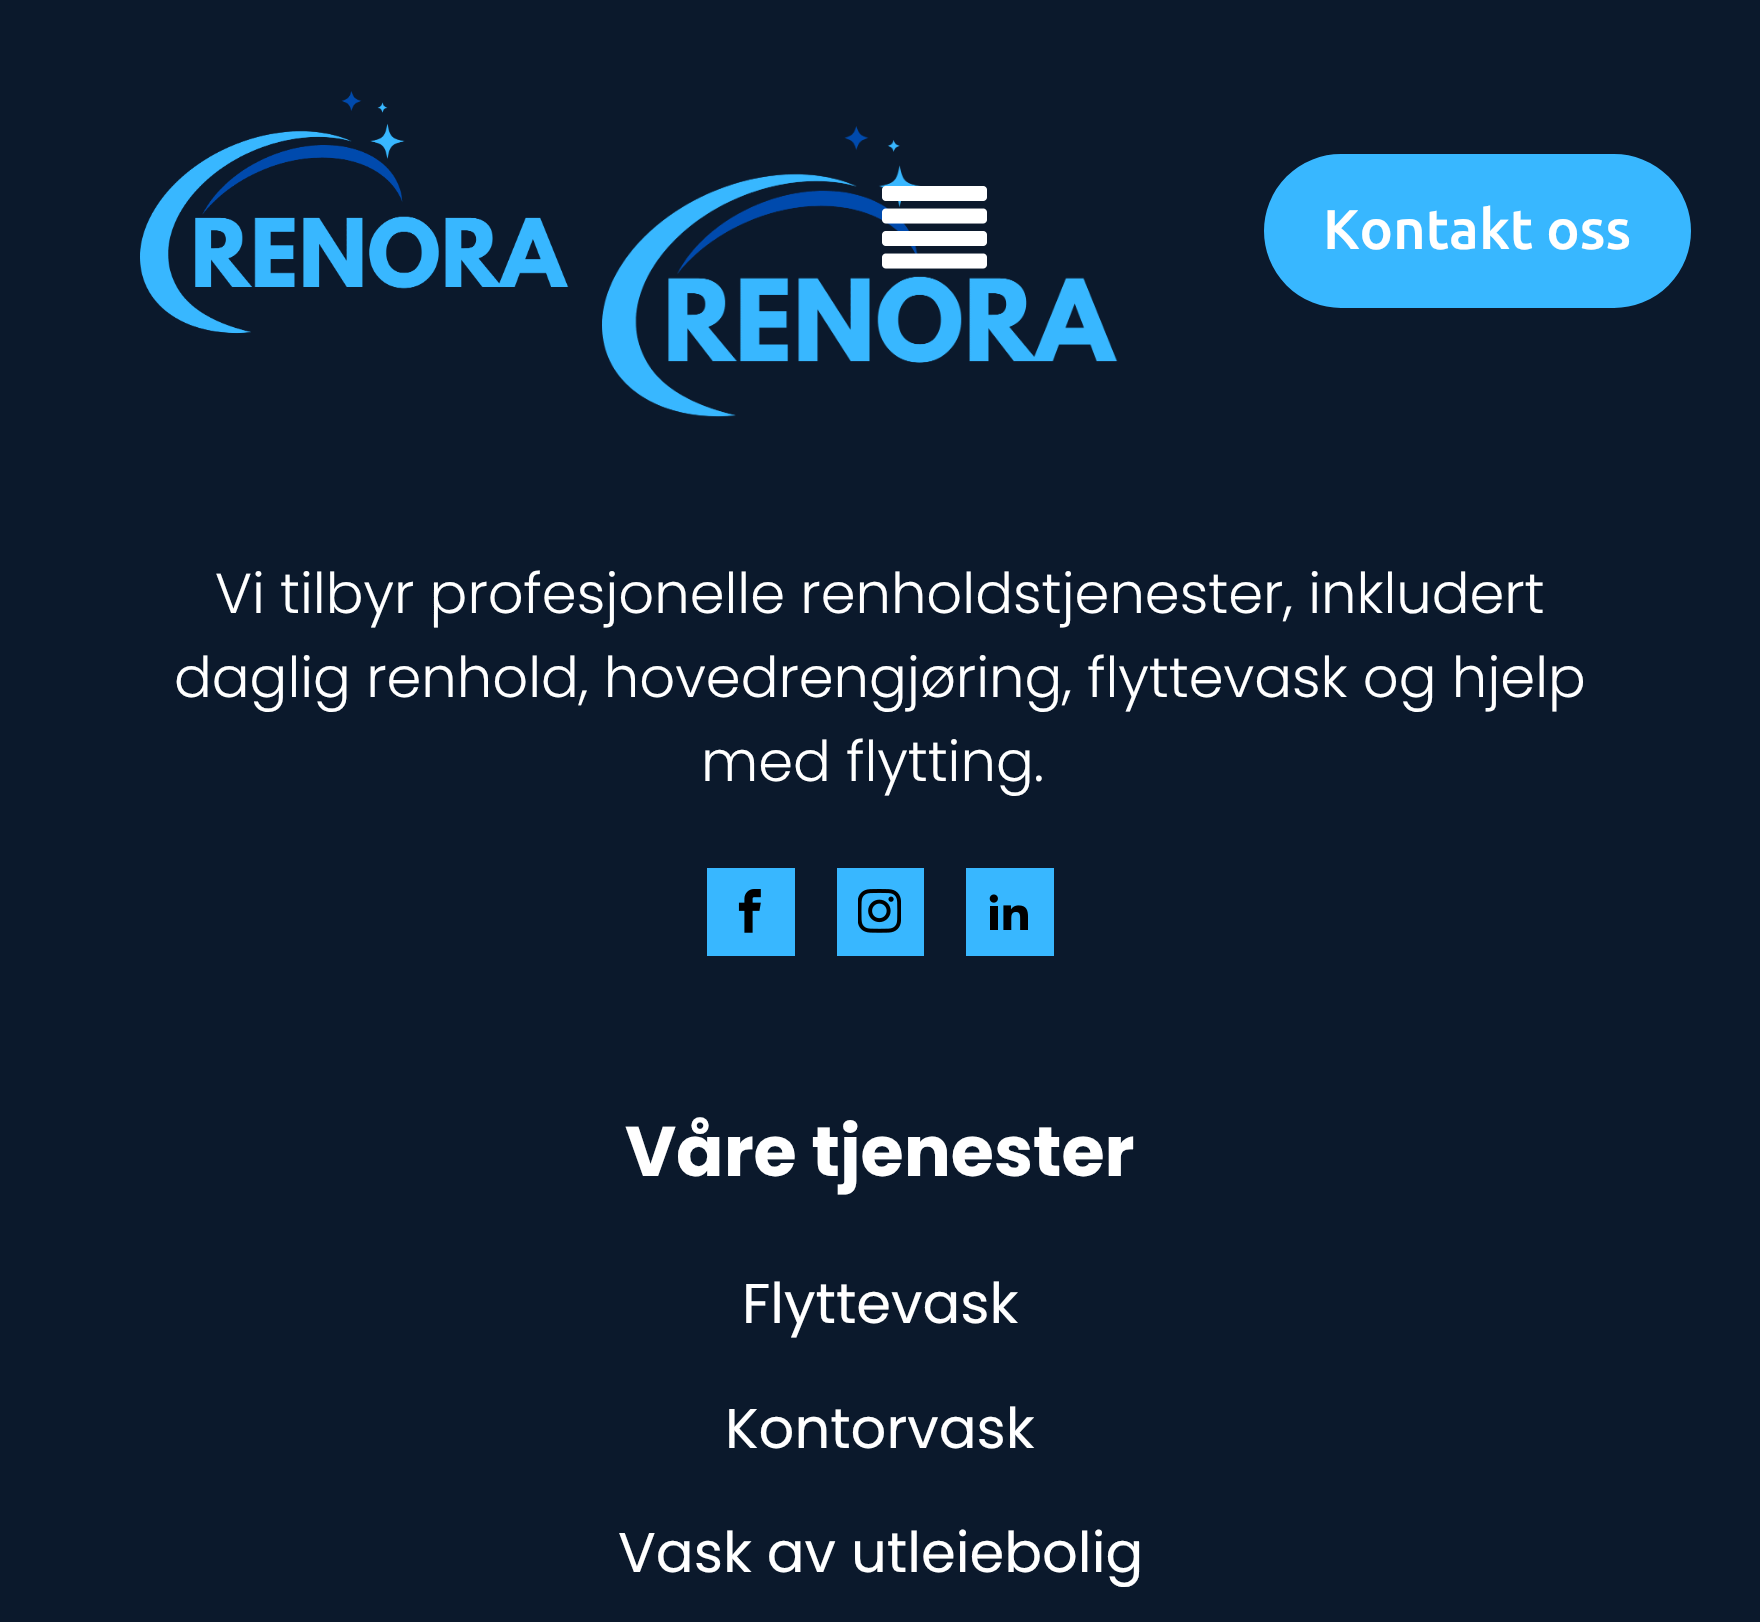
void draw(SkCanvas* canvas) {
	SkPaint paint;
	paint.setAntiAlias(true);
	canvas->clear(0xff0b192c);
	canvas->drawImageRect(SkImages::DeferredFromEncodedData(SkData::MakeFromFileName("img1.png")), SkRect::MakeXYWH(140, 91, 429, 243), SkSamplingOptions());
	canvas->drawImageRect(SkImages::DeferredFromEncodedData(SkData::MakeFromFileName("img3.png")), SkRect::MakeXYWH(602, 126, 516, 291), SkSamplingOptions());
	canvas->drawImageRect(SkImages::DeferredFromEncodedData(SkData::MakeFromFileName("img2.png")), SkRect::MakeXYWH(882, 186, 105, 83), SkSamplingOptions());
	paint.setColor(0xff38b7ff);
	canvas->drawRoundRect(SkRect::MakeXYWH(1267.5, 157.5, 420, 147), 73.5, 73.5, paint);
	paint.setStroke(true);
	paint.setStrokeWidth(7);
	canvas->drawRoundRect(SkRect::MakeXYWH(1267.5, 157.5, 420, 147), 73.5, 73.5, paint);
	SkFont f1(fontMgr->matchFamilyStyle("Ubuntu", SkFontStyle(500, SkFontStyle::kNormal_Width, SkFontStyle::kUpright_Slant)), 56);
	f1.setSubpixel(true);
	paint.setStroke(false);
	paint.setColor(0xffffffff);
	canvas->drawString("Kontakt oss", 1323, 249, f1, paint);
	SkFont f2(fontMgr->matchFamilyStyle("Poppins", SkFontStyle(300, SkFontStyle::kNormal_Width, SkFontStyle::kUpright_Slant)), 56);
	f2.setSubpixel(true);
	canvas->drawString("Vi tilbyr profesjonelle renholdstjenester, inkludert", 215, 613, f2, paint);
	canvas->drawString("daglig renhold, hovedrengjøring, flyttevask og hjelp", 174, 697, f2, paint);
	canvas->drawString("med flytting.", 701, 781, f2, paint);
	paint.setColor(0xff38b7ff);
	canvas->drawRect(SkRect::MakeXYWH(707, 868, 88, 88), paint);
	canvas->drawImageRect(SkImages::DeferredFromEncodedData(SkData::MakeFromFileName("img4.png")), SkRect::MakeXYWH(738, 889, 23, 44), SkSamplingOptions());
	canvas->drawRect(SkRect::MakeXYWH(837, 868, 87, 88), paint);
	canvas->drawImageRect(SkImages::DeferredFromEncodedData(SkData::MakeFromFileName("img5.png")), SkRect::MakeXYWH(858, 889, 43, 44), SkSamplingOptions());
	canvas->drawRect(SkRect::MakeXYWH(966, 868, 88, 88), paint);
	canvas->drawImageRect(SkImages::DeferredFromEncodedData(SkData::MakeFromFileName("img6.png")), SkRect::MakeXYWH(989, 894, 39, 36), SkSamplingOptions());
	SkFont f3(fontMgr->matchFamilyStyle("Poppins", SkFontStyle::Bold()), 70);
	f3.setSubpixel(true);
	paint.setColor(0xffffffff);
	canvas->drawString("Våre tjenester", 625, 1176, f3, paint);
	SkFont f4(fontMgr->matchFamilyStyle("Poppins", SkFontStyle::Normal()), 56);
	f4.setSubpixel(true);
	canvas->drawString("Flyttevask", 742, 1323, f4, paint);
	canvas->drawString("Kontorvask", 725, 1448, f4, paint);
	canvas->drawString("Vask av utleiebolig", 618, 1572, f4, paint);
}
